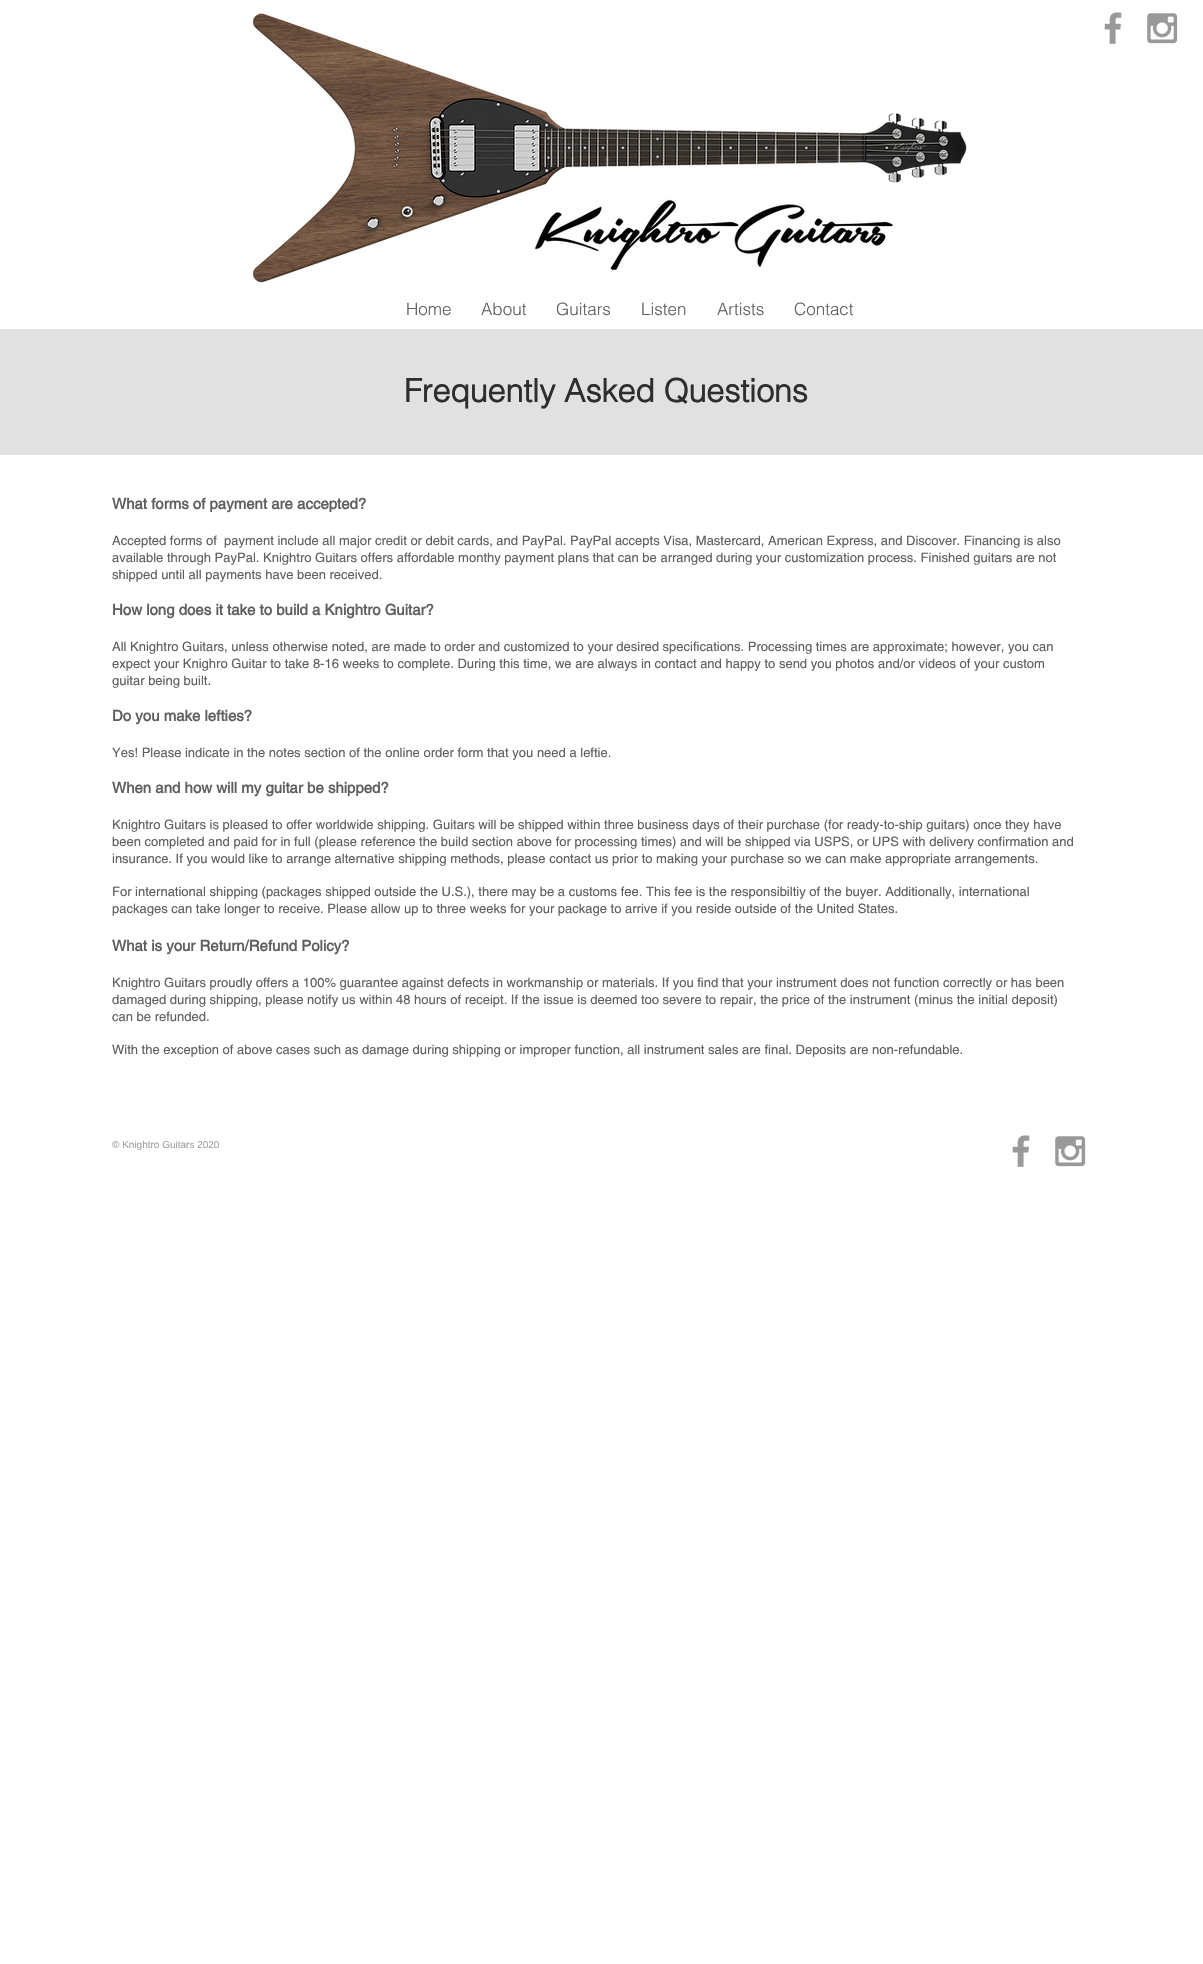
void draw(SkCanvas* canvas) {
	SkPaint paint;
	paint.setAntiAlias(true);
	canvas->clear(0xffffffff);
	canvas->drawImageRect(SkImages::DeferredFromEncodedData(SkData::MakeFromFileName("img1.png")), SkRect::MakeXYWH(1104, 12, 18, 32), SkSamplingOptions());
	canvas->drawImageRect(SkImages::DeferredFromEncodedData(SkData::MakeFromFileName("img2.png")), SkRect::MakeXYWH(1147, 13, 31, 31), SkSamplingOptions());
	canvas->drawImageRect(SkImages::DeferredFromEncodedData(SkData::MakeFromFileName("img3.png")), SkRect::MakeXYWH(251, 13, 716, 270), SkSamplingOptions());
	SkFont f1(fontMgr->matchFamilyStyle("helvetica", SkFontStyle(300, SkFontStyle::kNormal_Width, SkFontStyle::kUpright_Slant)), 17);
	f1.setSubpixel(true);
	paint.setColor(0xff605e5e);
	canvas->drawString("Home", 406, 315, f1, paint);
	canvas->drawString("About", 481, 315, f1, paint);
	canvas->drawString("Guitars", 556, 315, f1, paint);
	canvas->drawString("Listen", 641, 315, f1, paint);
	canvas->drawString("Artists", 717, 315, f1, paint);
	canvas->drawString("Contact", 794, 315, f1, paint);
	paint.setColor(0xffe1e1e1);
	canvas->drawRect(SkRect::MakeXYWH(0, 329, 1203, 126), paint);
	SkFont f2(fontMgr->matchFamilyStyle("helvetica", SkFontStyle::Bold()), 32);
	f2.setSubpixel(true);
	paint.setColor(0xff2f2e2e);
	canvas->drawString("Frequently Asked Questions", 404, 402, f2, paint);
	SkFont f3(fontMgr->matchFamilyStyle("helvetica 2", SkFontStyle::Bold()), 15);
	f3.setSubpixel(true);
	paint.setColor(0xff605e5e);
	canvas->drawString("What forms of payment are accepted?", 112, 509, f3, paint);
	SkFont f4(fontMgr->matchFamilyStyle("helvetica", SkFontStyle::Normal()), 13);
	f4.setSubpixel(true);
	canvas->drawString("Accepted forms of  payment include all major credit or debit cards, and PayPal. PayPal accepts Visa, Mastercard, American Express, and Discover. Financing is also", 112, 545, f4, paint);
	canvas->drawString("available through PayPal. Knightro Guitars offers affordable monthy payment plans that can be arranged during your customization process. Finished guitars are not", 112, 562, f4, paint);
	canvas->drawString("shipped until all payments have been received.", 112, 579, f4, paint);
	canvas->drawString("How long does it take to build a Knightro Guitar?", 112, 615, f3, paint);
	canvas->drawString("All Knightro Guitars, unless otherwise noted, are made to order and customized to your desired specifications. Processing times are approximate; however, you can", 112, 651, f4, paint);
	canvas->drawString("expect your Knighro Guitar to take 8-16 weeks to complete. During this time, we are always in contact and happy to send you photos and/or videos of your custom", 112, 668, f4, paint);
	canvas->drawString("guitar being built.", 112, 685, f4, paint);
	canvas->drawString("Do you make lefties?", 112, 721, f3, paint);
	canvas->drawString("Yes! Please indicate in the notes section of the online order form that you need a leftie.", 112, 757, f4, paint);
	canvas->drawString("When and how will my guitar be shipped?", 112, 793, f3, paint);
	canvas->drawString("Knightro Guitars is pleased to offer worldwide shipping. Guitars will be shipped within three business days of their purchase (for ready-to-ship guitars) once they have", 112, 829, f4, paint);
	canvas->drawString("been completed and paid for in full (please reference the build section above for processing times) and will be shipped via USPS, or UPS with delivery confirmation and", 112, 846, f4, paint);
	canvas->drawString("insurance. If you would like to arrange alternative shipping methods, please contact us prior to making your purchase so we can make appropriate arrangements.", 112, 863, f4, paint);
	canvas->drawString("For international shipping (packages shipped outside the U.S.), there may be a customs fee. This fee is the responsibiltiy of the buyer. Additionally, international", 112, 896, f4, paint);
	canvas->drawString("packages can take longer to receive. Please allow up to three weeks for your package to arrive if you reside outside of the United States.", 112, 913, f4, paint);
	canvas->drawString("What is your Return/Refund Policy?", 112, 951, f3, paint);
	canvas->drawString("Knightro Guitars proudly offers a 100% guarantee against defects in workmanship or materials. If you find that your instrument does not function correctly or has been", 112, 987, f4, paint);
	canvas->drawString("damaged during shipping, please notify us within 48 hours of receipt. If the issue is deemed too severe to repair, the price of the instrument (minus the initial deposit)", 112, 1004, f4, paint);
	canvas->drawString("can be refunded.", 112, 1021, f4, paint);
	canvas->drawString("With the exception of above cases such as damage during shipping or improper function, all instrument sales are final. Deposits are non-refundable.", 112, 1054, f4, paint);
	SkFont f5(fontMgr->matchFamilyStyle("Liberation Sans", SkFontStyle::Normal()), 10);
	f5.setSubpixel(true);
	paint.setColor(0xffa0a09f);
	canvas->drawString("© Knightro Guitars 2020", 112, 1148, f5, paint);
	canvas->drawImageRect(SkImages::DeferredFromEncodedData(SkData::MakeFromFileName("img1.png")), SkRect::MakeXYWH(1012, 1135, 18, 32), SkSamplingOptions());
	canvas->drawImageRect(SkImages::DeferredFromEncodedData(SkData::MakeFromFileName("img2.png")), SkRect::MakeXYWH(1055, 1136, 31, 31), SkSamplingOptions());
}
